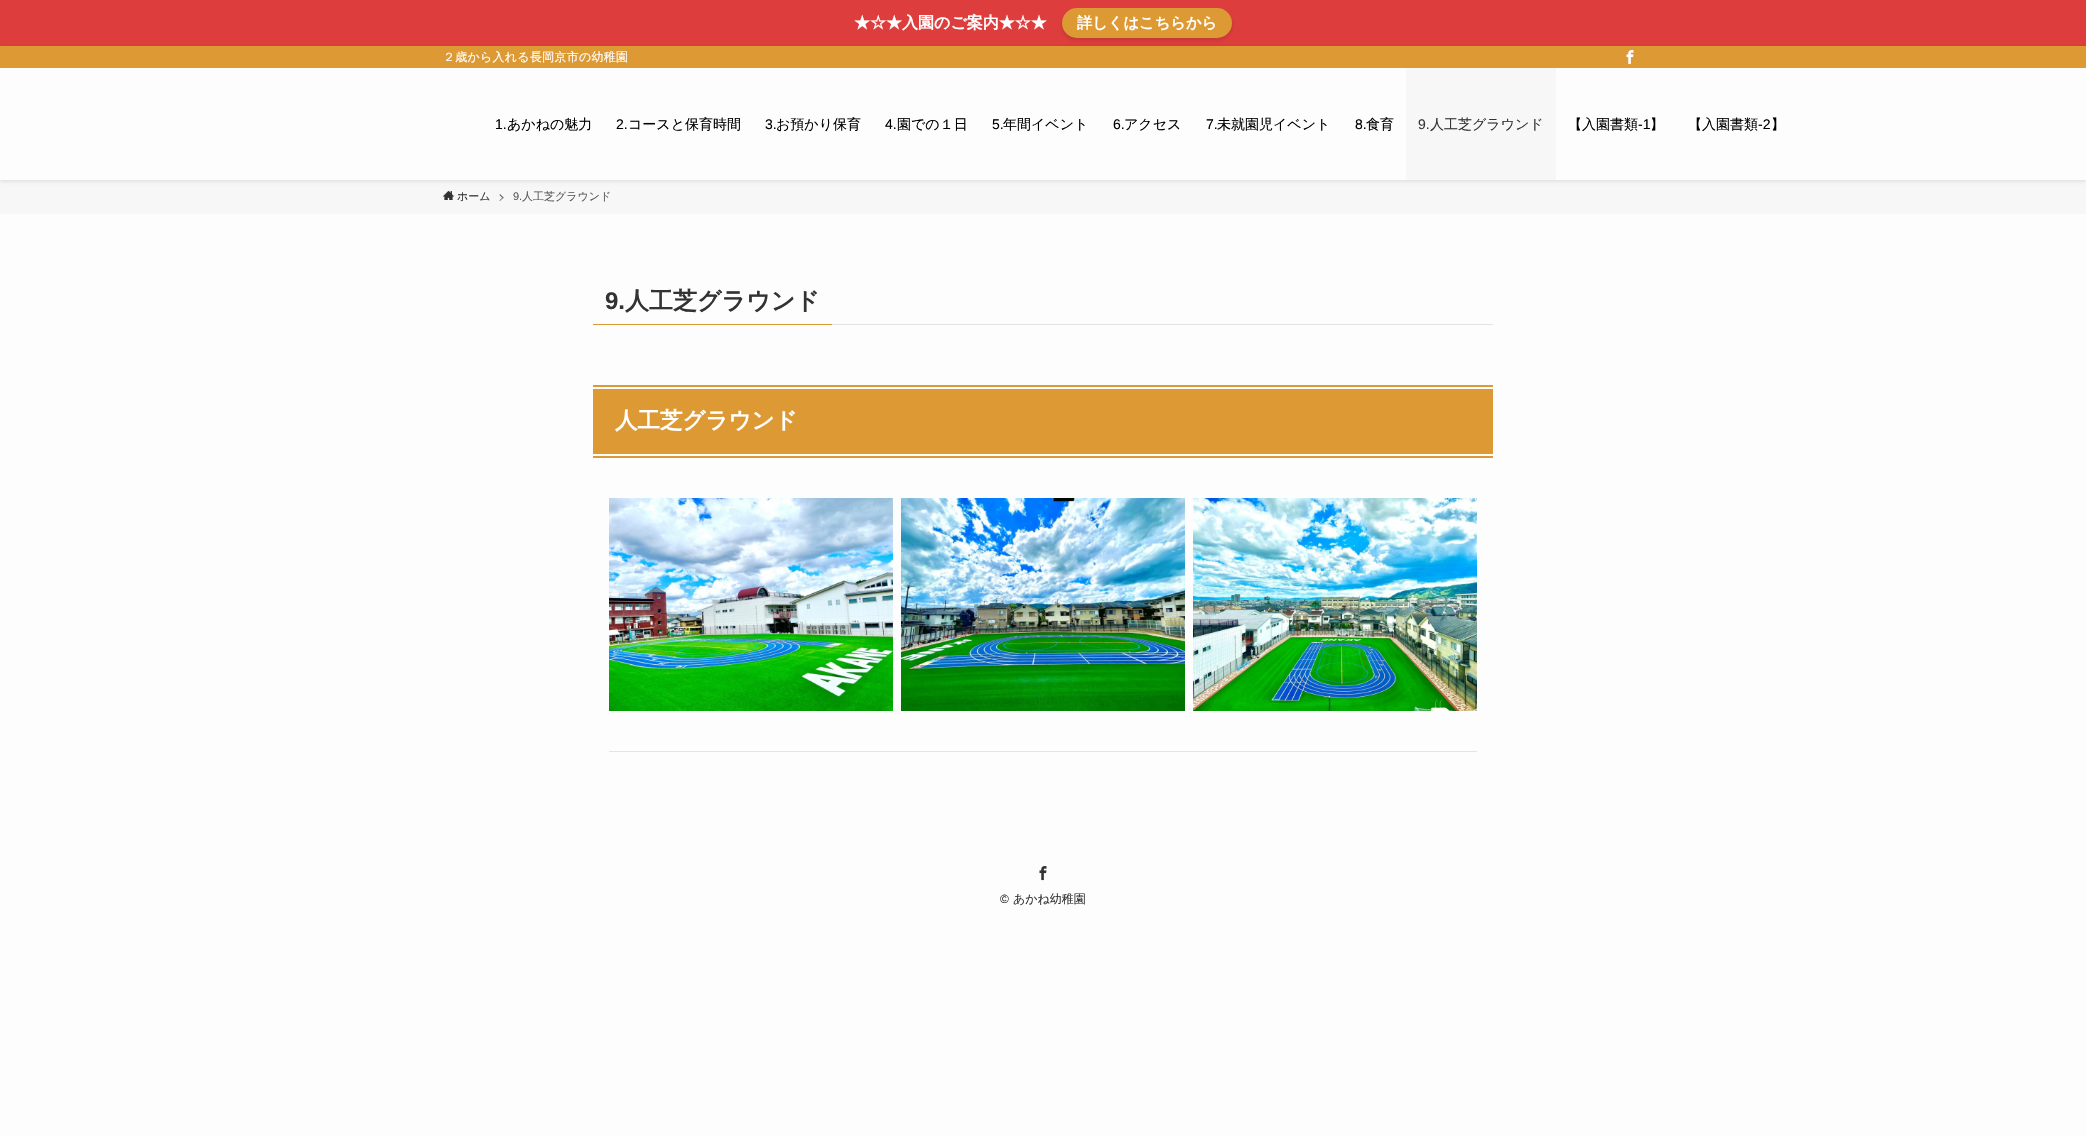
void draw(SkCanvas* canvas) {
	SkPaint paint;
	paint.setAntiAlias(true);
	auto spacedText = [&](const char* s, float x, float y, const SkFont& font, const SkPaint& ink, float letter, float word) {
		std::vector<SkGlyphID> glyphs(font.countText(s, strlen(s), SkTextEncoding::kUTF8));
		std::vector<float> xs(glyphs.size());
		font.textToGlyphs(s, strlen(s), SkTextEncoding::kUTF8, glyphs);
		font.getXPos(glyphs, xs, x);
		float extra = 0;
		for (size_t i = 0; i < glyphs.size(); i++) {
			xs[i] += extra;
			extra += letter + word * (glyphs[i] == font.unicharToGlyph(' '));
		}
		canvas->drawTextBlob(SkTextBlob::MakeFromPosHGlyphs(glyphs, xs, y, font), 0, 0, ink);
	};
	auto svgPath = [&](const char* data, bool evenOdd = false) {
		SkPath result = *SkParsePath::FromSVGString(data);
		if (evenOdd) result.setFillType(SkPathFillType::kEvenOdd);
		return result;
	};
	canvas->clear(0xfffdfdfd);
	paint.setColor(0xffde3d3d);
	canvas->drawRect(SkRect::MakeXYWH(0, 0, 2086, 46), paint);
	SkFont f1(fontMgr->matchFamilyStyle("WenQuanYi Zen Hei", SkFontStyle::Bold()), 16);
	f1.setSubpixel(true);
	paint.setColor(0xffffffff);
	canvas->drawString("★☆★入園のご案内★☆★", 854, 28, f1, paint);
	paint.setColor(0x1f000000);
	paint.setMaskFilter(SkMaskFilter::MakeBlur(kNormal_SkBlurStyle, 2));
	canvas->drawRoundRect(SkRect::MakeXYWH(1062, 10, 170, 30), 15, 15, paint);
	paint.setMaskFilter(nullptr);
	paint.setColor(0xffdd9933);
	canvas->drawRoundRect(SkRect::MakeXYWH(1062, 8, 170, 30), 15, 15, paint);
	SkFont f2(fontMgr->matchFamilyStyle("WenQuanYi Zen Hei", SkFontStyle::Bold()), 15.25);
	f2.setSubpixel(true);
	paint.setColor(0xffffffff);
	canvas->drawString("詳しくはこちらから", 1077, 28, f2, paint);
	paint.setColor(0xfff7f7f7);
	canvas->drawRect(SkRect::MakeXYWH(0, 180, 2086, 34), paint);
	canvas->save();
	canvas->clipPath(svgPath("M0 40H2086V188H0ZM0 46H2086V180H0Z", true), true);
	paint.setColor(0x1f000000);
	paint.setMaskFilter(SkMaskFilter::MakeBlur(kNormal_SkBlurStyle, 2));
	canvas->drawRect(SkRect::MakeXYWH(0, 47, 2086, 134), paint);
	paint.setMaskFilter(nullptr);
	canvas->restore();
	paint.setColor(0xffdd9933);
	canvas->drawRect(SkRect::MakeXYWH(0, 46, 2086, 22), paint);
	SkFont f3(fontMgr->matchFamilyStyle("WenQuanYi Zen Hei", SkFontStyle(500, SkFontStyle::kNormal_Width, SkFontStyle::kUpright_Slant)), 12);
	f3.setSubpixel(true);
	paint.setColor(0xffffffff);
	spacedText("２歳から入れる長岡京市の幼稚園", 443, 61, f3, paint, 0.25, 0);
	canvas->drawImageRect(SkImages::DeferredFromEncodedData(SkData::MakeFromFileName("img1.png")), SkRect::MakeXYWH(1626, 50, 8, 15), SkSamplingOptions());
	SkFont f4(fontMgr->matchFamilyStyle("Liberation Sans", SkFontStyle::Normal()), 14);
	f4.setSubpixel(true);
	paint.setColor(0xff000000);
	canvas->drawString("1.", 495, 129, f4, paint);
	SkFont f5(fontMgr->matchFamilyStyle("WenQuanYi Zen Hei", SkFontStyle(500, SkFontStyle::kNormal_Width, SkFontStyle::kUpright_Slant)), 14);
	f5.setSubpixel(true);
	canvas->drawString("あかねの魅力", 507, 129, f5, paint);
	canvas->drawString("2.", 616, 129, f4, paint);
	canvas->drawString("コースと保育時間", 628, 129, f5, paint);
	canvas->drawString("3.", 765, 129, f4, paint);
	canvas->drawString("お預かり保育", 776, 129, f5, paint);
	canvas->drawString("4.", 885, 129, f4, paint);
	canvas->drawString("園での１日", 897, 129, f5, paint);
	canvas->drawString("5.", 992, 129, f4, paint);
	canvas->drawString("年間イベント", 1003, 129, f5, paint);
	canvas->drawString("6.", 1113, 129, f4, paint);
	canvas->drawString("アクセス", 1124, 129, f5, paint);
	canvas->drawString("7.", 1206, 129, f4, paint);
	canvas->drawString("未就園児イベント", 1217, 129, f5, paint);
	canvas->drawString("8.", 1355, 129, f4, paint);
	canvas->drawString("食育", 1366, 129, f5, paint);
	paint.setColor(0xfff7f7f7);
	canvas->drawRect(SkRect::MakeXYWH(1406, 68, 150, 112), paint);
	paint.setColor(0xff333333);
	canvas->drawString("9.", 1418, 129, f4, paint);
	canvas->drawString("人工芝グラウンド", 1430, 129, f5, paint);
	paint.setColor(0xff000000);
	canvas->drawString("【入園書類", 1568, 129, f5, paint);
	canvas->drawString("-1", 1638, 129, f4, paint);
	canvas->drawString("】", 1650, 129, f5, paint);
	canvas->drawString("【入園書類", 1688, 129, f5, paint);
	canvas->drawString("-2", 1758, 129, f4, paint);
	canvas->drawString("】", 1771, 129, f5, paint);
	canvas->drawImageRect(SkImages::DeferredFromEncodedData(SkData::MakeFromFileName("img2.png")), SkRect::MakeXYWH(443, 190, 11, 10), SkSamplingOptions());
	SkFont f6(fontMgr->matchFamilyStyle("WenQuanYi Zen Hei", SkFontStyle(500, SkFontStyle::kNormal_Width, SkFontStyle::kUpright_Slant)), 11);
	f6.setSubpixel(true);
	paint.setColor(0xff333333);
	canvas->drawString("ホーム", 457, 200, f6, paint);
	paint.setColor(0xff5a5a5a);
	canvas->drawPath(svgPath("M500 194L503.5 197.5L503 198.5L499.5 195Z"), paint);
	canvas->drawPath(svgPath("M503 197L503.5 197.5L500 201L499.5 200.5Z"), paint);
	SkFont f7(fontMgr->matchFamilyStyle("Liberation Sans", SkFontStyle::Normal()), 11);
	f7.setSubpixel(true);
	canvas->drawString("9.", 513, 200, f7, paint);
	canvas->drawString("人工芝グラウンド", 522, 200, f6, paint);
	paint.setColor(0xffe3e3e3);
	canvas->drawRect(SkRect::MakeXYWH(832, 324, 661, 1), paint);
	paint.setColor(0xffdd9933);
	canvas->drawRect(SkRect::MakeXYWH(593, 324, 239, 1), paint);
	SkFont f8(fontMgr->matchFamilyStyle("Liberation Sans", SkFontStyle::Bold()), 24);
	f8.setSubpixel(true);
	paint.setColor(0xff333333);
	canvas->drawString("9.", 605, 309, f8, paint);
	SkFont f9(fontMgr->matchFamilyStyle("WenQuanYi Zen Hei", SkFontStyle::Bold()), 24);
	f9.setSubpixel(true);
	canvas->drawString("人工芝グラウンド", 625, 309, f9, paint);
	paint.setColor(0xffdd9933);
	canvas->drawRect(SkRect::MakeXYWH(593, 389, 900, 65), paint);
	canvas->drawRect(SkRect::MakeXYWH(593, 385, 900, 2), paint);
	canvas->drawRect(SkRect::MakeXYWH(593, 456, 900, 2), paint);
	SkFont f10(fontMgr->matchFamilyStyle("WenQuanYi Zen Hei", SkFontStyle::Bold()), 22.5);
	f10.setSubpixel(true);
	paint.setColor(0xffffffff);
	canvas->drawString("人工芝グラウンド", 615, 428, f10, paint);
	canvas->drawImageRect(SkImages::DeferredFromEncodedData(SkData::MakeFromFileName("img3.png")), SkRect::MakeXYWH(609, 498, 284, 213), SkSamplingOptions());
	canvas->drawImageRect(SkImages::DeferredFromEncodedData(SkData::MakeFromFileName("img4.png")), SkRect::MakeXYWH(901, 498, 284, 213), SkSamplingOptions());
	canvas->drawImageRect(SkImages::DeferredFromEncodedData(SkData::MakeFromFileName("img5.png")), SkRect::MakeXYWH(1193, 498, 284, 213), SkSamplingOptions());
	paint.setColor(0xffe4e4e4);
	canvas->drawRect(SkRect::MakeXYWH(609, 751, 868, 1), paint);
	canvas->drawImageRect(SkImages::DeferredFromEncodedData(SkData::MakeFromFileName("img6.png")), SkRect::MakeXYWH(1039, 866, 8, 15), SkSamplingOptions());
	SkFont f11(fontMgr->matchFamilyStyle("Liberation Sans", SkFontStyle::Normal()), 12);
	f11.setSubpixel(true);
	paint.setColor(0xff333333);
	canvas->drawString("©", 1000, 903, f11, paint);
	canvas->drawString("あかね幼稚園", 1013, 903, f3, paint);
}
